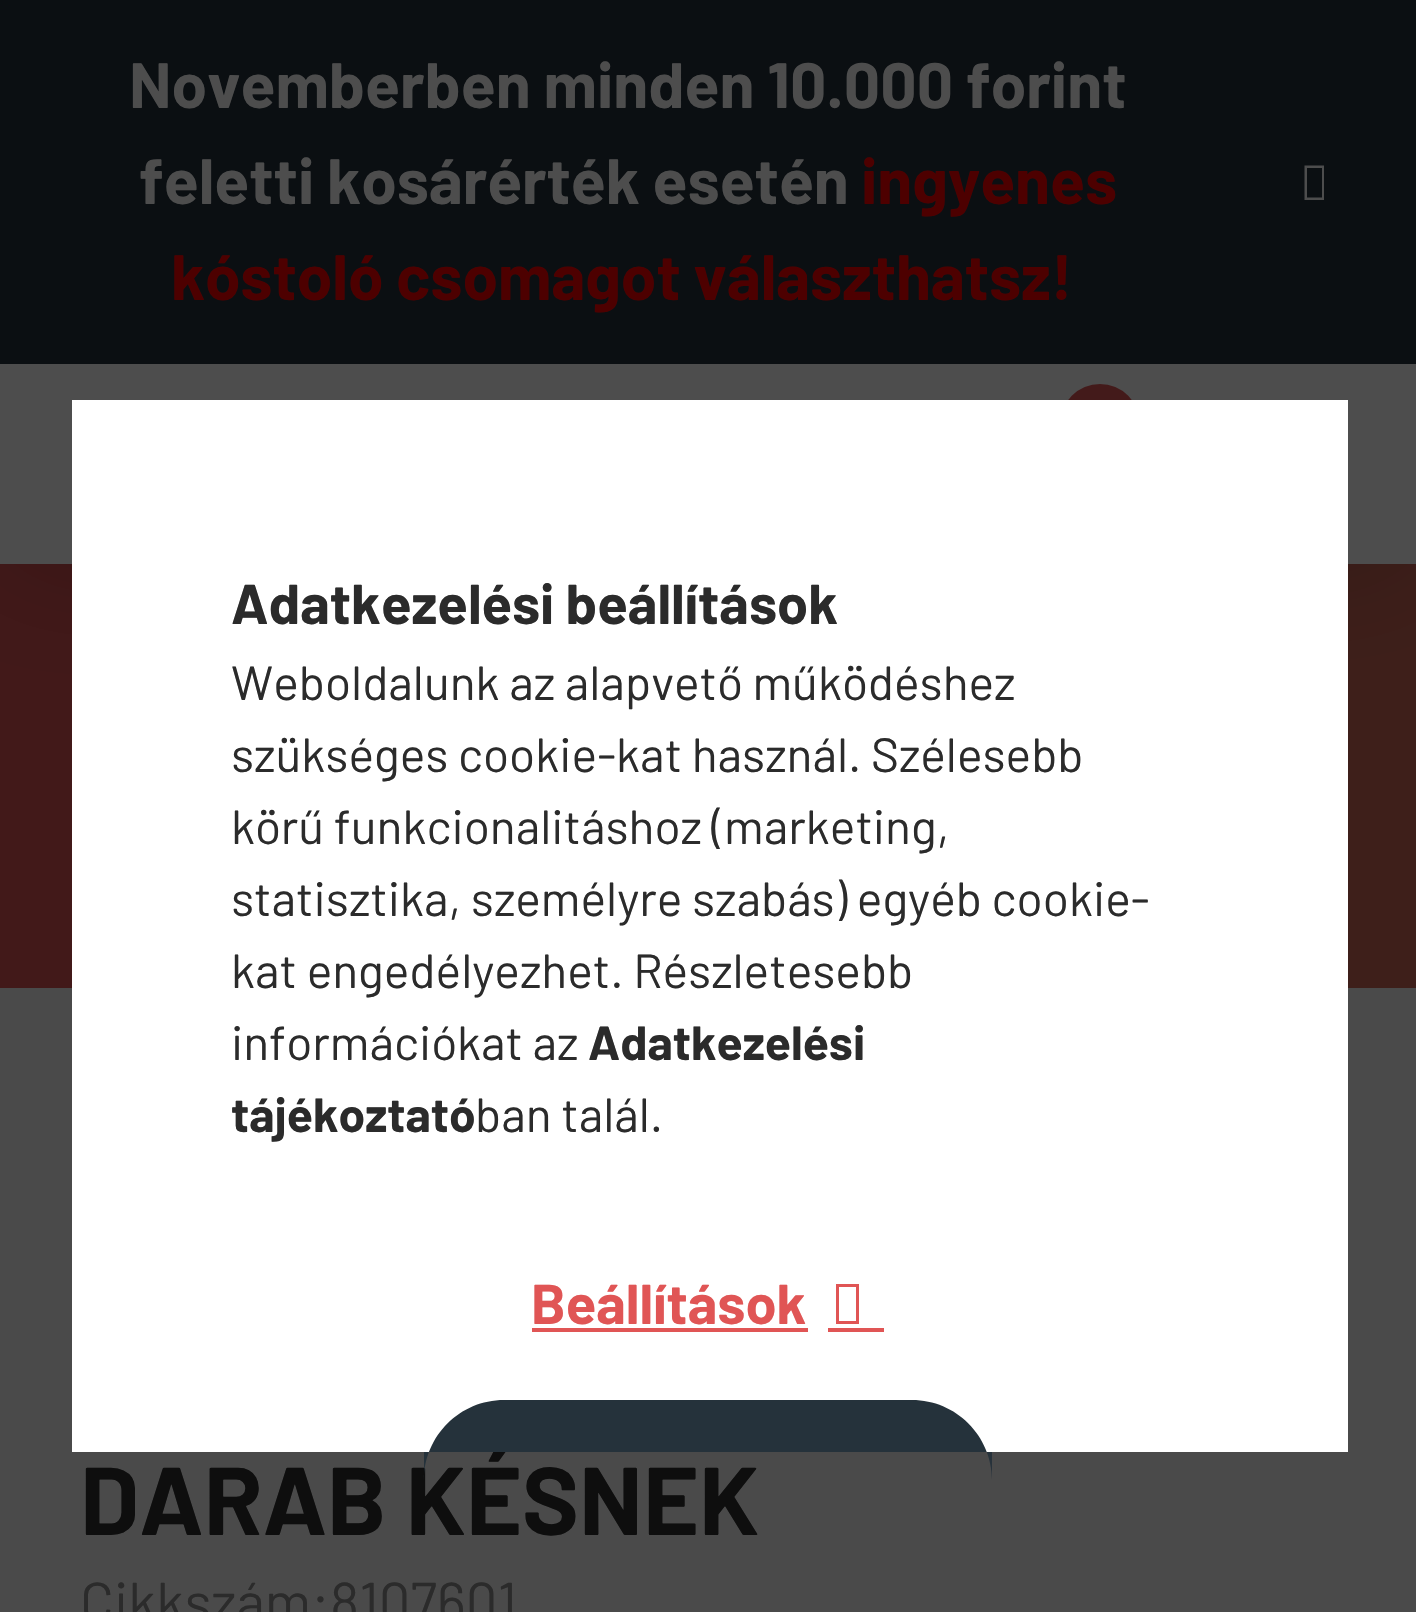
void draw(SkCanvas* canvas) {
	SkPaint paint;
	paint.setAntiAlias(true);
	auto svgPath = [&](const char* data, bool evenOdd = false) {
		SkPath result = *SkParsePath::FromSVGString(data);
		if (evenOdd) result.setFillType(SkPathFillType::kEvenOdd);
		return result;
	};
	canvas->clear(0xff4a4a4a);
	{
		const SkColor colors[] = {0xff421919, 0xff3e1f1a};
		const float stops[] = {0, 1};
		const SkPoint ends[] = {{0, 806}, {1416, 806}};
		paint.setShader(SkGradientShader::MakeLinear(ends, colors, stops, 2, SkTileMode::kClamp));
		paint.setAlpha(255);
	}
	canvas->drawRect(SkRect::MakeXYWH(0, 564, 1416, 424), paint);
	paint.setShader(nullptr);
	paint.setColor(0x33000000);
	paint.setMaskFilter(SkMaskFilter::MakeBlur(kNormal_SkBlurStyle, 60));
	canvas->drawRect(SkRect::MakeXYWH(0, 364, 1416, 200), paint);
	paint.setMaskFilter(nullptr);
	paint.setColor(0xff0b0f12);
	canvas->drawRect(SkRect::MakeXYWH(0, 0, 1416, 364), paint);
	SkFont f1(fontMgr->matchFamilyStyle("Barlow", SkFontStyle::Bold()), 64);
	f1.setSubpixel(true);
	paint.setColor(0xff4d4d4d);
	canvas->drawString("Novemberben minden 10.000 forint", 129, 108, f1, paint);
	canvas->drawString("feletti kosárérték esetén", 139, 204, f1, paint);
	paint.setColor(0xff4d0000);
	canvas->drawString("ingyenes", 861, 204, f1, paint);
	canvas->drawString("kóstoló csomagot választhatsz!", 171, 300, f1, paint);
	paint.setColor(0xff4d4d4d);
	canvas->drawPath(svgPath("M1304.5 200V165.5H1324V200ZM1307 197.5H1322V168H1307Z"), paint);
	canvas->drawRect(SkRect::MakeXYWH(0, 364, 1416, 200), paint);
	paint.setColor(0xff431a1a);
	canvas->drawCircle(1100, 424, 40, paint);
	SkFont f2(fontMgr->matchFamilyStyle("Barlow", SkFontStyle::Bold()), 96);
	f2.setSubpixel(true);
	paint.setColor(0xff0e0e0e);
	canvas->drawString("DARAB KÉSNEK", 80, 1535, f2, paint);
	SkFont f3(fontMgr->matchFamilyStyle("Barlow", SkFontStyle::Normal()), 56);
	f3.setSubpixel(true);
	paint.setColor(0xff2b2b2b);
	canvas->drawString("Cikkszám:8107601", 80, 1622, f3, paint);
	paint.setColor(0xffffffff);
	canvas->drawRect(SkRect::MakeXYWH(72, 400, 1276, 1052), paint);
	SkFont f4(fontMgr->matchFamilyStyle("Barlow", SkFontStyle::Bold()), 56);
	f4.setSubpixel(true);
	paint.setColor(0xff2b2b2b);
	canvas->drawString("Adatkezelési beállítások", 231, 624, f4, paint);
	SkFont f5(fontMgr->matchFamilyStyle("Barlow", SkFontStyle::Normal()), 48);
	f5.setSubpixel(true);
	canvas->drawString("Weboldalunk az alapvető működéshez", 231, 700, f5, paint);
	canvas->drawString("szükséges cookie-kat használ. Szélesebb", 231, 772, f5, paint);
	canvas->drawString("körű funkcionalitáshoz (marketing,", 231, 844, f5, paint);
	canvas->drawString("statisztika, személyre szabás) egyéb cookie-", 231, 916, f5, paint);
	canvas->drawString("kat engedélyezhet. Részletesebb", 231, 988, f5, paint);
	canvas->drawString("információkat az", 231, 1060, f5, paint);
	SkFont f6(fontMgr->matchFamilyStyle("Barlow", SkFontStyle::Bold()), 48);
	f6.setSubpixel(true);
	canvas->drawString("Adatkezelési", 588, 1060, f6, paint);
	canvas->drawString("tájékoztató", 231, 1132, f6, paint);
	canvas->drawString("ban talál.", 475, 1132, f5, paint);
	paint.setColor(0xffe05555);
	canvas->drawString("Beállítások", 531, 1324, f4, paint);
	canvas->drawRect(SkRect::MakeXYWH(532, 1328, 276, 4), paint);
	canvas->drawPath(svgPath("M836 1324V1284H859V1324ZM839 1321H856V1287H839Z"), paint);
	canvas->drawRect(SkRect::MakeXYWH(828, 1328, 56, 4), paint);
	{
		const SkColor colors[] = {0xff25323b, 0xffe05555};
		const float stops[] = {0.33, 0.67};
		const SkPoint ends[] = {{423, 1480}, {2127, 1480}};
		paint.setShader(SkGradientShader::MakeLinear(ends, colors, stops, 2, SkTileMode::kClamp));
		paint.setAlpha(255);
	}
	canvas->drawPath(svgPath("M504 1400H912C956 1400 992 1436 992 1480V1452H424V1480C424 1436 460 1400 504 1400Z"), paint);
}
